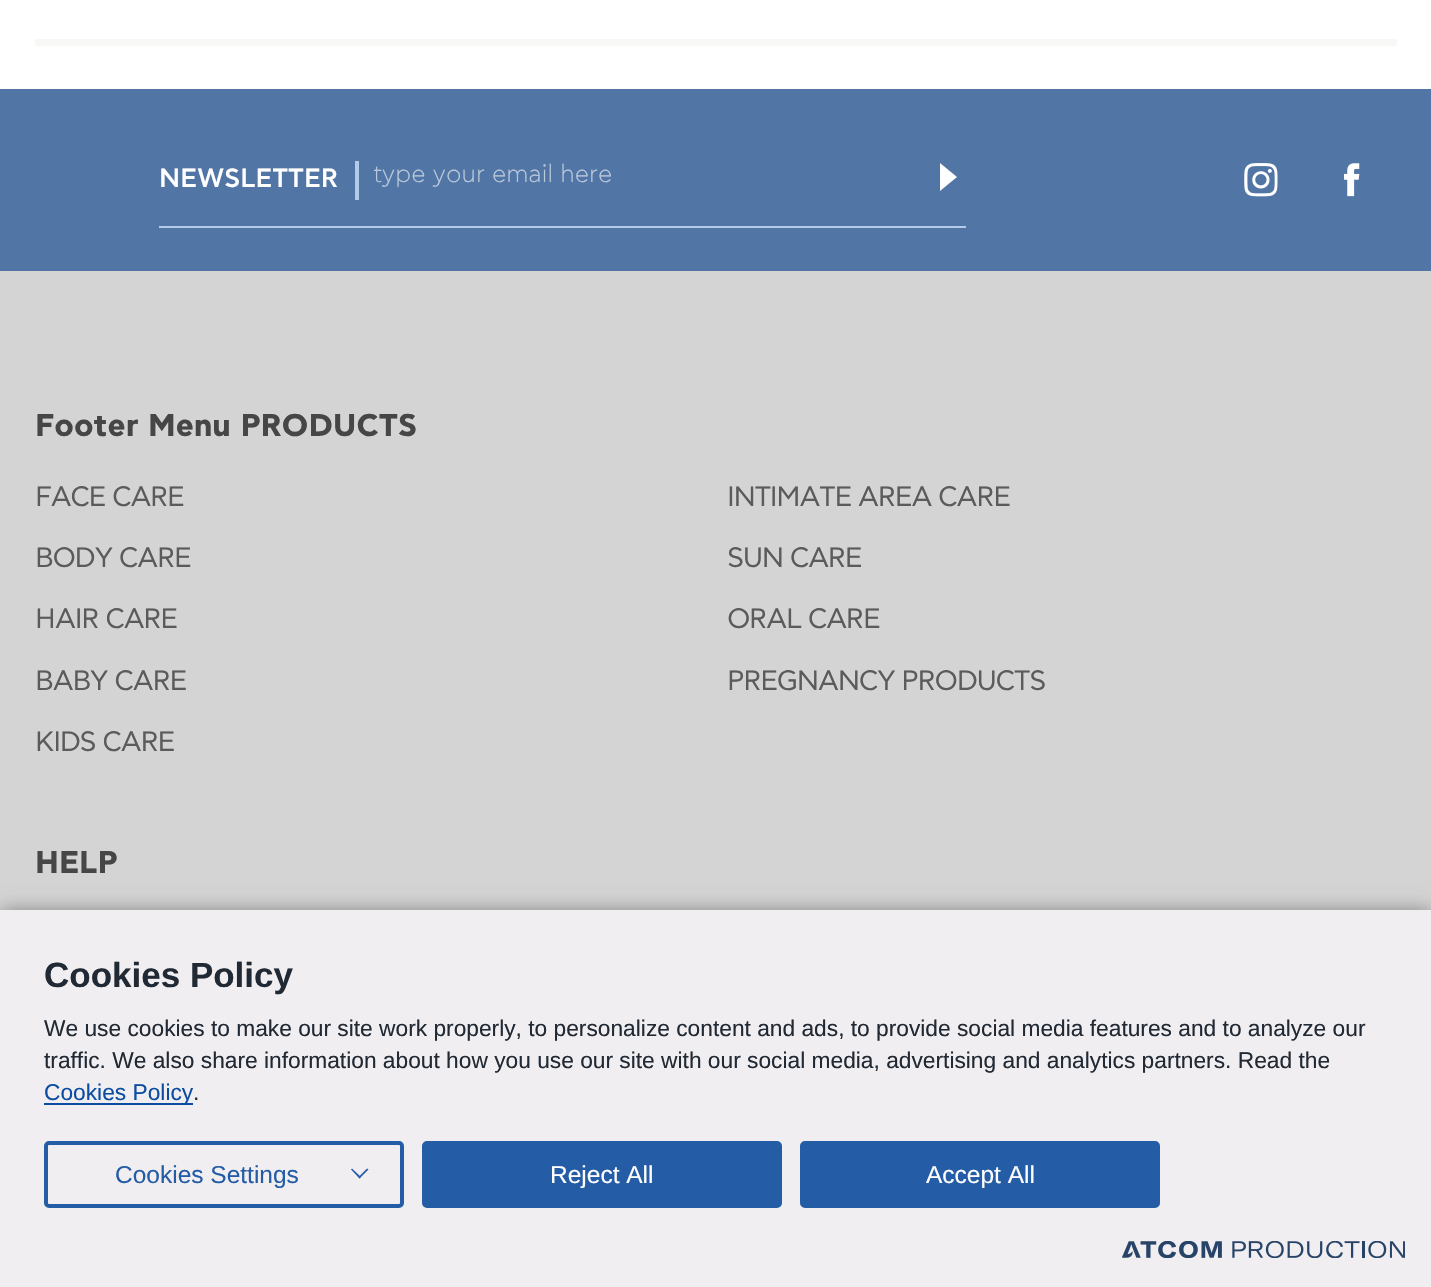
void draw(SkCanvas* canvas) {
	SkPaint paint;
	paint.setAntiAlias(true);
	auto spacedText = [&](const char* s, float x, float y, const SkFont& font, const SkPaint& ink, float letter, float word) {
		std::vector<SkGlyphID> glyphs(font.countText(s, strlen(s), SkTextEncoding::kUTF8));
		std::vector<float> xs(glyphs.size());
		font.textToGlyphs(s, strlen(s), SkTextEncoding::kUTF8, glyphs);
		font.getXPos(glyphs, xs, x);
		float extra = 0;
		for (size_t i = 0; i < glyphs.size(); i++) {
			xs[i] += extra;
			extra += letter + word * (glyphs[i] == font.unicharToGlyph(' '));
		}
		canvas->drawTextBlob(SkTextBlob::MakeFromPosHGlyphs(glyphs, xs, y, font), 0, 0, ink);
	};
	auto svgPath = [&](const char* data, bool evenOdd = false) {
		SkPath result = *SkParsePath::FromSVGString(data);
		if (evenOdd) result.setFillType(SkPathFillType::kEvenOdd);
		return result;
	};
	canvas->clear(0xffffffff);
	paint.setColor(0xfff8f8f6);
	canvas->drawRect(SkRect::MakeXYWH(35, 39, 1362, 7), paint);
	paint.setColor(0xff5175a5);
	canvas->drawRect(SkRect::MakeXYWH(0, 89, 1431, 182), paint);
	paint.setColor(0xffb3cae8);
	canvas->drawRect(SkRect::MakeXYWH(159, 226, 807, 2), paint);
	SkFont f1(fontMgr->matchFamilyStyle("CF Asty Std", SkFontStyle(500, SkFontStyle::kNormal_Width, SkFontStyle::kUpright_Slant)), 26.25);
	f1.setSubpixel(true);
	paint.setColor(0xffffffff);
	canvas->drawString("NEWSLETTER", 159, 187, f1, paint);
	paint.setColor(0xffb3cae8);
	canvas->drawRect(SkRect::MakeXYWH(355, 161, 4, 39), paint);
	SkFont f2(fontMgr->matchFamilyStyle("CF Asty Std", SkFontStyle(300, SkFontStyle::kNormal_Width, SkFontStyle::kUpright_Slant)), 24.5);
	f2.setSubpixel(true);
	paint.setColor(0xffb9c8db);
	canvas->drawString("type your email here", 373, 182, f2, paint);
	paint.setColor(0xffffffff);
	canvas->drawPath(svgPath("M940 191V163L957 177Z"), paint);
	canvas->drawImageRect(SkImages::DeferredFromEncodedData(SkData::MakeFromFileName("img1.png")), SkRect::MakeXYWH(1244, 163, 34, 34), SkSamplingOptions());
	canvas->drawImageRect(SkImages::DeferredFromEncodedData(SkData::MakeFromFileName("img2.png")), SkRect::MakeXYWH(1344, 163, 16, 34), SkSamplingOptions());
	paint.setColor(0xffd4d4d4);
	canvas->drawRect(SkRect::MakeXYWH(0, 271, 1431, 639), paint);
	SkFont f3(fontMgr->matchFamilyStyle("CF Asty Std", SkFontStyle::Bold()), 31.5);
	f3.setSubpixel(true);
	paint.setColor(0xff464646);
	canvas->drawString("Footer Menu PRODUCTS", 35, 436, f3, paint);
	SkFont f4(fontMgr->matchFamilyStyle("CF Asty Std", SkFontStyle::Normal()), 28);
	f4.setSubpixel(true);
	paint.setColor(0xff5c5a5a);
	spacedText("FACE CARE", 35, 506, f4, paint, -1.4, 0);
	spacedText("INTIMATE AREA CARE", 727, 506, f4, paint, -1.4, 0);
	spacedText("BODY CARE", 35, 567, f4, paint, -1.4, 0);
	spacedText("SUN CARE", 727, 567, f4, paint, -1.4, 0);
	spacedText("HAIR CARE", 35, 628, f4, paint, -1.4, 0);
	spacedText("ORAL CARE", 727, 628, f4, paint, -1.4, 0);
	spacedText("BABY CARE", 35, 690, f4, paint, -1.4, 0);
	spacedText("PREGNANCY PRODUCTS", 727, 690, f4, paint, -1.4, 0);
	spacedText("KIDS CARE", 35, 751, f4, paint, -1.4, 0);
	paint.setColor(0xff464646);
	canvas->drawString("HELP", 35, 873, f3, paint);
	paint.setColor(0x5e000000);
	paint.setMaskFilter(SkMaskFilter::MakeBlur(kNormal_SkBlurStyle, 9));
	canvas->drawRect(SkRect::MakeXYWH(0, 910, 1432, 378), paint);
	paint.setMaskFilter(nullptr);
	paint.setColor(0xfff0eef0);
	canvas->drawRect(SkRect::MakeXYWH(0, 910, 1431, 377), paint);
	SkFont f5(fontMgr->matchFamilyStyle("Liberation Sans", SkFontStyle::Bold()), 35);
	f5.setSubpixel(true);
	paint.setColor(0xff212934);
	canvas->drawString("Cookies Policy", 44, 987, f5, paint);
	SkFont f6(fontMgr->matchFamilyStyle("Liberation Sans", SkFontStyle::Normal()), 22.75);
	f6.setSubpixel(true);
	canvas->drawString("We use cookies to make our site work properly, to personalize content and ads, to provide social media features and to analyze our", 44, 1036, f6, paint);
	canvas->drawString("traffic. We also share information about how you use our site with our social media, advertising and analytics partners. Read the", 44, 1068, f6, paint);
	paint.setColor(0xff0c4da2);
	canvas->drawRect(SkRect::MakeXYWH(44, 1103, 149, 2), paint);
	canvas->drawString("Cookies Policy", 44, 1100, f6, paint);
	paint.setColor(0xff212934);
	canvas->drawString(".", 193, 1100, f6, paint);
	paint.setStroke(true);
	paint.setStrokeWidth(4);
	paint.setColor(0xff245ca5);
	canvas->drawRoundRect(SkRect::MakeXYWH(46, 1143, 356, 63), 3, 3, paint);
	SkFont f7(fontMgr->matchFamilyStyle("Liberation Sans", SkFontStyle::Normal()), 24.5);
	f7.setSubpixel(true);
	paint.setStroke(false);
	canvas->drawString("Cookies Settings", 115, 1183, f7, paint);
	canvas->drawPath(svgPath("M367 1168.5L368.5 1169.5L359.5 1178.5L358.5 1177Z"), paint);
	canvas->drawPath(svgPath("M352 1168.5L361 1177L359.5 1178.5L351 1169.5Z"), paint);
	canvas->drawRoundRect(SkRect::MakeXYWH(424, 1143, 356, 63), 3, 3, paint);
	paint.setStroke(true);
	canvas->drawRoundRect(SkRect::MakeXYWH(424, 1143, 356, 63), 3, 3, paint);
	paint.setStroke(false);
	paint.setColor(0xffffffff);
	canvas->drawString("Reject All", 550, 1183, f7, paint);
	paint.setColor(0xff245ca5);
	canvas->drawRoundRect(SkRect::MakeXYWH(802, 1143, 356, 63), 3, 3, paint);
	paint.setStroke(true);
	canvas->drawRoundRect(SkRect::MakeXYWH(802, 1143, 356, 63), 3, 3, paint);
	paint.setStroke(false);
	paint.setColor(0xffffffff);
	canvas->drawString("Accept All", 926, 1183, f7, paint);
	canvas->drawImageRect(SkImages::DeferredFromEncodedData(SkData::MakeFromFileName("img3.png")), SkRect::MakeXYWH(1122, 1241, 283, 17), SkSamplingOptions());
}
